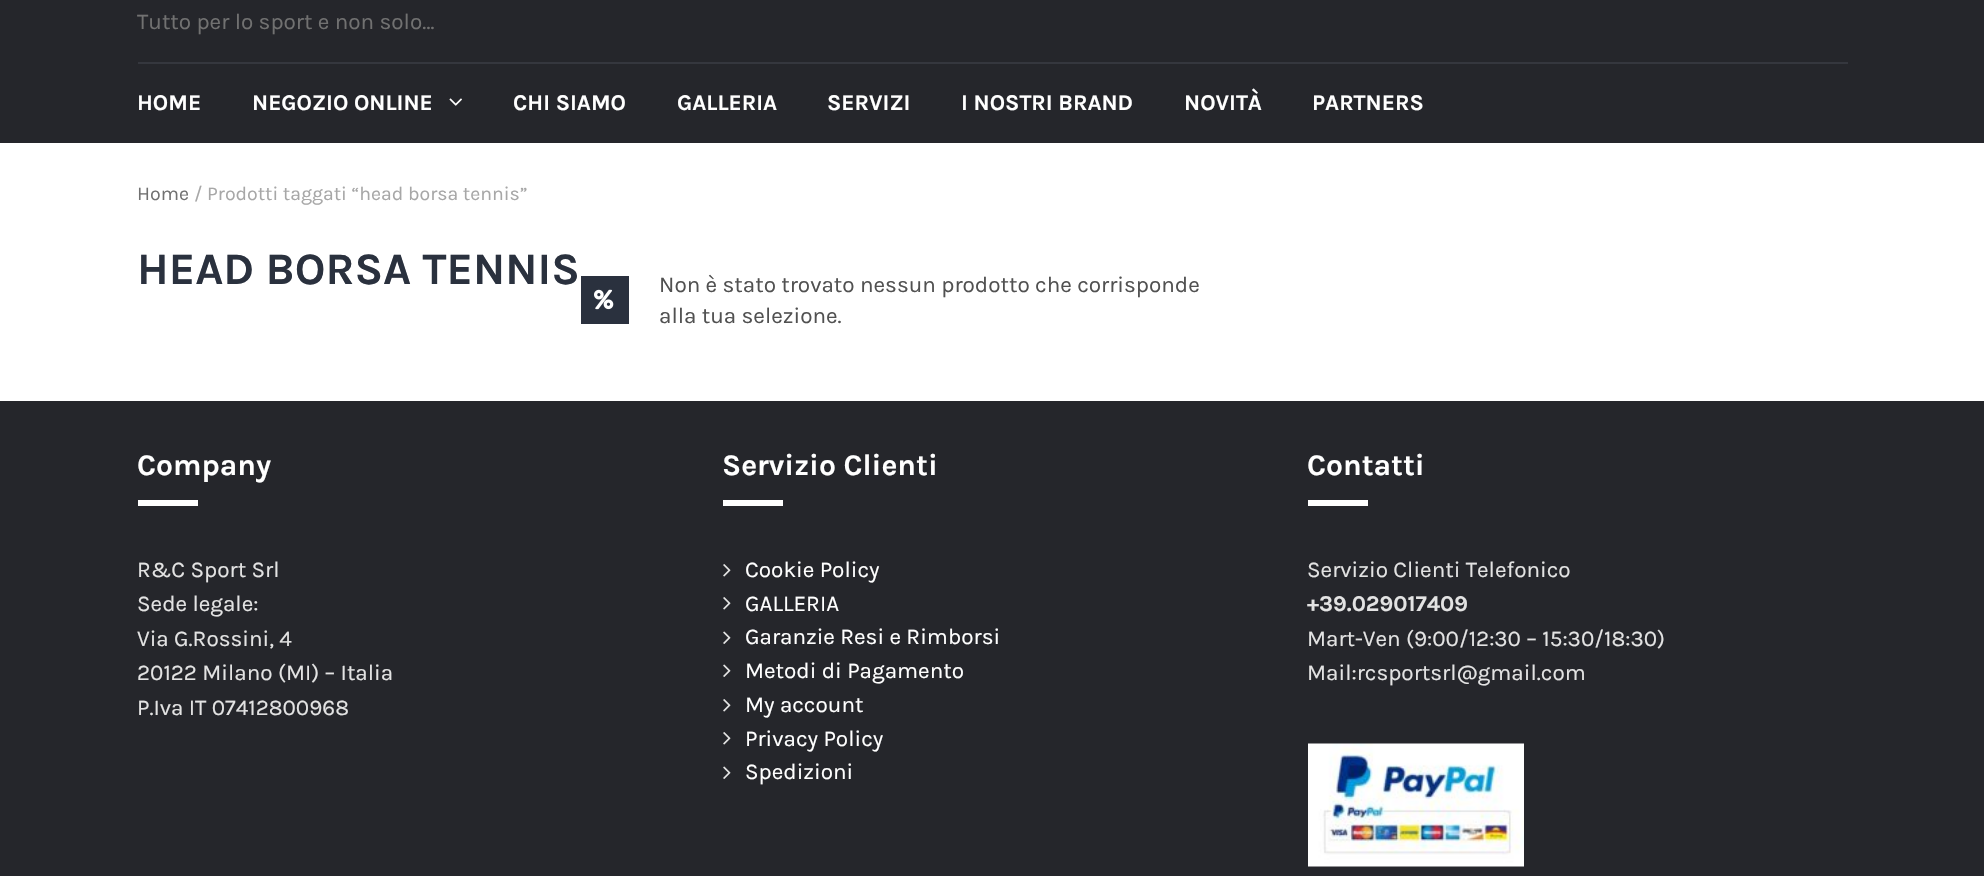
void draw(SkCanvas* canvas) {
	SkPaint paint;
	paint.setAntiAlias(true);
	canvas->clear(0xffffffff);
	paint.setColor(0xff25262b);
	canvas->drawRect(SkRect::MakeXYWH(0, 0, 1984, 143), paint);
	SkFont f1(fontMgr->matchFamilyStyle("Karla", SkFontStyle::Normal()), 22.5);
	f1.setSubpixel(true);
	paint.setColor(0xff717171);
	canvas->drawString("Tutto per lo sport e non solo…", 137, 29, f1, paint);
	paint.setColor(0xff35373e);
	canvas->drawRect(SkRect::MakeXYWH(138, 62, 1710, 2), paint);
	SkFont f2(fontMgr->matchFamilyStyle("Karla", SkFontStyle::Bold()), 22.5);
	f2.setSubpixel(true);
	paint.setColor(0xffffffff);
	canvas->drawString("HOME", 137, 110, f2, paint);
	canvas->drawString("NEGOZIO ONLINE", 252, 110, f2, paint);
	canvas->drawImageRect(SkImages::DeferredFromEncodedData(SkData::MakeFromFileName("img1.png")), SkRect::MakeXYWH(449, 98, 13, 8), SkSamplingOptions());
	canvas->drawString("CHI SIAMO", 513, 110, f2, paint);
	canvas->drawString("GALLERIA", 677, 110, f2, paint);
	canvas->drawString("SERVIZI", 827, 110, f2, paint);
	canvas->drawString("I NOSTRI BRAND", 961, 110, f2, paint);
	canvas->drawString("NOVITÀ", 1184, 110, f2, paint);
	canvas->drawString("PARTNERS", 1312, 110, f2, paint);
	SkFont f3(fontMgr->matchFamilyStyle("Karla", SkFontStyle::Normal()), 19.5);
	f3.setSubpixel(true);
	paint.setColor(0xff717171);
	canvas->drawString("Home", 137, 200, f3, paint);
	paint.setColor(0xffa7a7a7);
	canvas->drawString("/ Prodotti taggati “head borsa tennis”", 194, 200, f3, paint);
	SkFont f4(fontMgr->matchFamilyStyle("Karla", SkFontStyle::Bold()), 45);
	f4.setSubpixel(true);
	paint.setColor(0xff2a313e);
	canvas->drawString("HEAD BORSA TENNIS", 137, 284, f4, paint);
	canvas->drawRect(SkRect::MakeXYWH(581, 276, 48, 48), paint);
	canvas->drawImageRect(SkImages::DeferredFromEncodedData(SkData::MakeFromFileName("img2.png")), SkRect::MakeXYWH(594, 289, 20, 21), SkSamplingOptions());
	paint.setColor(0xff515151);
	canvas->drawString("Non è stato trovato nessun prodotto che corrisponde", 659, 292, f1, paint);
	canvas->drawString("alla tua selezione.", 659, 323, f1, paint);
	paint.setColor(0xff25262b);
	canvas->drawRect(SkRect::MakeXYWH(0, 401, 1984, 475), paint);
	SkFont f5(fontMgr->matchFamilyStyle("Karla", SkFontStyle::Bold()), 30);
	f5.setSubpixel(true);
	paint.setColor(0xffffffff);
	canvas->drawString("Company", 137, 475, f5, paint);
	canvas->drawRect(SkRect::MakeXYWH(138, 500, 60, 6), paint);
	paint.setColor(0xffe3e3e3);
	canvas->drawString("R&C Sport Srl", 137, 577, f1, paint);
	canvas->drawString("Sede legale:", 137, 611, f1, paint);
	canvas->drawString("Via G.Rossini, 4", 137, 646, f1, paint);
	canvas->drawString("20122 Milano (MI) – Italia", 137, 680, f1, paint);
	canvas->drawString("P.Iva IT 07412800968", 137, 715, f1, paint);
	paint.setColor(0xffffffff);
	canvas->drawString("Servizio Clienti", 722, 475, f5, paint);
	canvas->drawRect(SkRect::MakeXYWH(723, 500, 60, 6), paint);
	canvas->drawImageRect(SkImages::DeferredFromEncodedData(SkData::MakeFromFileName("img3.png")), SkRect::MakeXYWH(723, 564, 8, 13), SkSamplingOptions());
	canvas->drawString("Cookie Policy", 745, 577, f1, paint);
	canvas->drawImageRect(SkImages::DeferredFromEncodedData(SkData::MakeFromFileName("img3.png")), SkRect::MakeXYWH(723, 597, 8, 13), SkSamplingOptions());
	canvas->drawString("GALLERIA", 745, 611, f1, paint);
	canvas->drawImageRect(SkImages::DeferredFromEncodedData(SkData::MakeFromFileName("img4.png")), SkRect::MakeXYWH(723, 631, 8, 13), SkSamplingOptions());
	canvas->drawString("Garanzie Resi e Rimborsi", 745, 644, f1, paint);
	canvas->drawImageRect(SkImages::DeferredFromEncodedData(SkData::MakeFromFileName("img4.png")), SkRect::MakeXYWH(723, 664, 8, 13), SkSamplingOptions());
	canvas->drawString("Metodi di Pagamento", 745, 678, f1, paint);
	canvas->drawImageRect(SkImages::DeferredFromEncodedData(SkData::MakeFromFileName("img3.png")), SkRect::MakeXYWH(723, 699, 8, 13), SkSamplingOptions());
	canvas->drawString("My account", 745, 712, f1, paint);
	canvas->drawImageRect(SkImages::DeferredFromEncodedData(SkData::MakeFromFileName("img3.png")), SkRect::MakeXYWH(723, 732, 8, 13), SkSamplingOptions());
	canvas->drawString("Privacy Policy", 745, 746, f1, paint);
	canvas->drawImageRect(SkImages::DeferredFromEncodedData(SkData::MakeFromFileName("img4.png")), SkRect::MakeXYWH(723, 766, 8, 13), SkSamplingOptions());
	canvas->drawString("Spedizioni", 745, 779, f1, paint);
	canvas->drawString("Contatti", 1307, 475, f5, paint);
	canvas->drawRect(SkRect::MakeXYWH(1308, 500, 60, 6), paint);
	paint.setColor(0xffe3e3e3);
	canvas->drawString("Servizio Clienti Telefonico", 1307, 577, f1, paint);
	canvas->drawString("+39.029017409", 1307, 611, f2, paint);
	canvas->drawString("Mart-Ven (9:00/12:30 – 15:30/18:30)", 1307, 646, f1, paint);
	canvas->drawString("Mail:rcsportsrl@gmail.com", 1307, 680, f1, paint);
	canvas->drawImageRect(SkImages::DeferredFromEncodedData(SkData::MakeFromFileName("img5.png")), SkRect::MakeXYWH(1308, 743, 216, 124), SkSamplingOptions());
}
